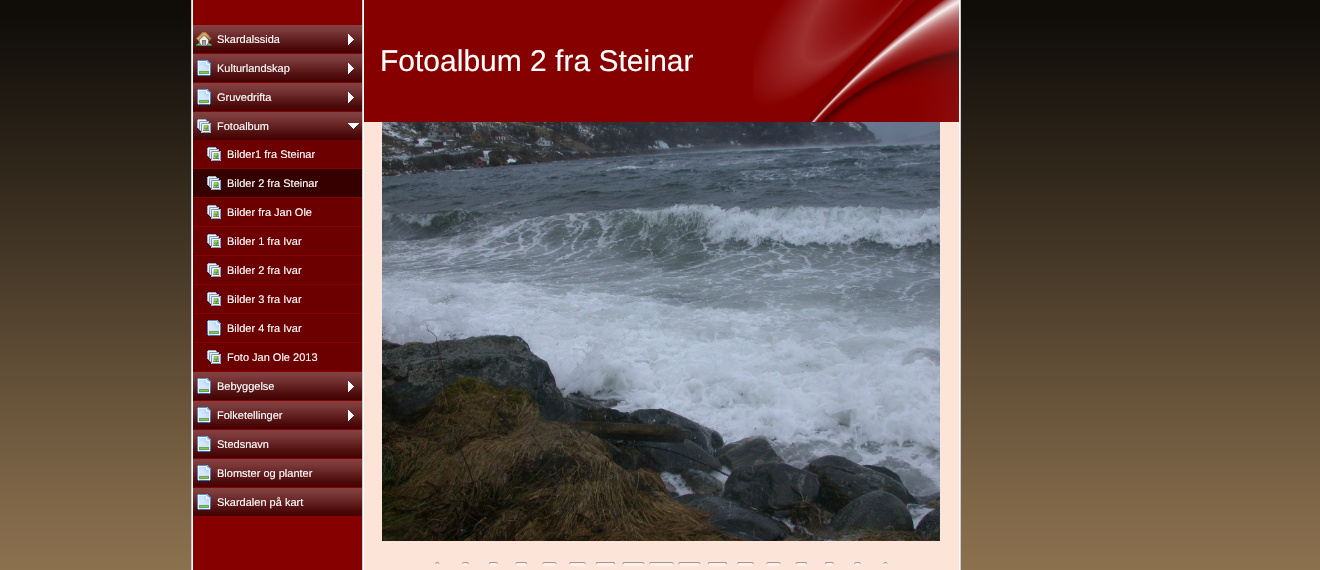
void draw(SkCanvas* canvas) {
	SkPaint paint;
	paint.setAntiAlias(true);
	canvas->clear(0xff9e8059);
	canvas->drawImageRect(SkImages::DeferredFromEncodedData(SkData::MakeFromFileName("img1.png")), SkRect::MakeXYWH(0, 0, 1320, 570), SkSamplingOptions());
	paint.setColor(0xffffffff);
	canvas->drawRect(SkRect::MakeXYWH(192, 0, 768, 570), paint);
	paint.setColor(0xffcccccc);
	canvas->drawRect(SkRect::MakeXYWH(191, 0, 1, 570), paint);
	paint.setColor(0xff870000);
	canvas->drawRect(SkRect::MakeXYWH(193, 0, 169, 570), paint);
	canvas->drawImageRect(SkImages::DeferredFromEncodedData(SkData::MakeFromFileName("img2.png")), SkRect::MakeXYWH(193, 25, 169, 28), SkSamplingOptions());
	canvas->drawImageRect(SkImages::DeferredFromEncodedData(SkData::MakeFromFileName("img3.png")), SkRect::MakeXYWH(196, 32, 16, 14), SkSamplingOptions());
	canvas->drawImageRect(SkImages::DeferredFromEncodedData(SkData::MakeFromFileName("img4.png")), SkRect::MakeXYWH(348, 34, 6, 11), SkSamplingOptions());
	SkFont f1(fontMgr->matchFamilyStyle("Liberation Sans", SkFontStyle::Normal()), 11);
	f1.setSubpixel(true);
	paint.setColor(0xffffffff);
	canvas->drawString("Skardalssida", 217, 43, f1, paint);
	canvas->drawImageRect(SkImages::DeferredFromEncodedData(SkData::MakeFromFileName("img2.png")), SkRect::MakeXYWH(193, 54, 169, 28), SkSamplingOptions());
	canvas->drawImageRect(SkImages::DeferredFromEncodedData(SkData::MakeFromFileName("img5.png")), SkRect::MakeXYWH(197, 60, 14, 16), SkSamplingOptions());
	canvas->drawImageRect(SkImages::DeferredFromEncodedData(SkData::MakeFromFileName("img4.png")), SkRect::MakeXYWH(348, 63, 6, 11), SkSamplingOptions());
	canvas->drawString("Kulturlandskap", 217, 72, f1, paint);
	canvas->drawImageRect(SkImages::DeferredFromEncodedData(SkData::MakeFromFileName("img2.png")), SkRect::MakeXYWH(193, 83, 169, 28), SkSamplingOptions());
	canvas->drawImageRect(SkImages::DeferredFromEncodedData(SkData::MakeFromFileName("img5.png")), SkRect::MakeXYWH(197, 89, 14, 16), SkSamplingOptions());
	canvas->drawImageRect(SkImages::DeferredFromEncodedData(SkData::MakeFromFileName("img4.png")), SkRect::MakeXYWH(348, 92, 6, 11), SkSamplingOptions());
	canvas->drawString("Gruvedrifta", 217, 101, f1, paint);
	canvas->drawImageRect(SkImages::DeferredFromEncodedData(SkData::MakeFromFileName("img2.png")), SkRect::MakeXYWH(193, 112, 169, 28), SkSamplingOptions());
	canvas->drawImageRect(SkImages::DeferredFromEncodedData(SkData::MakeFromFileName("img6.png")), SkRect::MakeXYWH(197, 119, 14, 14), SkSamplingOptions());
	canvas->drawImageRect(SkImages::DeferredFromEncodedData(SkData::MakeFromFileName("img7.png")), SkRect::MakeXYWH(348, 123, 11, 6), SkSamplingOptions());
	canvas->drawString("Fotoalbum", 217, 130, f1, paint);
	paint.setColor(0xff6c0000);
	canvas->drawRect(SkRect::MakeXYWH(193, 140, 169, 28), paint);
	canvas->drawImageRect(SkImages::DeferredFromEncodedData(SkData::MakeFromFileName("img8.png")), SkRect::MakeXYWH(207, 147, 14, 14), SkSamplingOptions());
	paint.setColor(0xffffffff);
	canvas->drawString("Bilder1 fra Steinar", 227, 158, f1, paint);
	paint.setColor(0xff360000);
	canvas->drawRect(SkRect::MakeXYWH(193, 169, 169, 28), paint);
	canvas->drawImageRect(SkImages::DeferredFromEncodedData(SkData::MakeFromFileName("img9.png")), SkRect::MakeXYWH(207, 176, 14, 14), SkSamplingOptions());
	paint.setColor(0xffffffff);
	canvas->drawString("Bilder 2 fra Steinar", 227, 187, f1, paint);
	paint.setColor(0xff6c0000);
	canvas->drawRect(SkRect::MakeXYWH(193, 198, 169, 28), paint);
	canvas->drawImageRect(SkImages::DeferredFromEncodedData(SkData::MakeFromFileName("img8.png")), SkRect::MakeXYWH(207, 205, 14, 14), SkSamplingOptions());
	paint.setColor(0xffffffff);
	canvas->drawString("Bilder fra Jan Ole", 227, 216, f1, paint);
	paint.setColor(0xff6c0000);
	canvas->drawRect(SkRect::MakeXYWH(193, 227, 169, 28), paint);
	canvas->drawImageRect(SkImages::DeferredFromEncodedData(SkData::MakeFromFileName("img8.png")), SkRect::MakeXYWH(207, 234, 14, 14), SkSamplingOptions());
	paint.setColor(0xffffffff);
	canvas->drawString("Bilder 1 fra Ivar", 227, 245, f1, paint);
	paint.setColor(0xff6c0000);
	canvas->drawRect(SkRect::MakeXYWH(193, 256, 169, 28), paint);
	canvas->drawImageRect(SkImages::DeferredFromEncodedData(SkData::MakeFromFileName("img8.png")), SkRect::MakeXYWH(207, 263, 14, 14), SkSamplingOptions());
	paint.setColor(0xffffffff);
	canvas->drawString("Bilder 2 fra Ivar", 227, 274, f1, paint);
	paint.setColor(0xff6c0000);
	canvas->drawRect(SkRect::MakeXYWH(193, 285, 169, 28), paint);
	canvas->drawImageRect(SkImages::DeferredFromEncodedData(SkData::MakeFromFileName("img8.png")), SkRect::MakeXYWH(207, 292, 14, 14), SkSamplingOptions());
	paint.setColor(0xffffffff);
	canvas->drawString("Bilder 3 fra Ivar", 227, 303, f1, paint);
	paint.setColor(0xff6c0000);
	canvas->drawRect(SkRect::MakeXYWH(193, 314, 169, 28), paint);
	canvas->drawImageRect(SkImages::DeferredFromEncodedData(SkData::MakeFromFileName("img10.png")), SkRect::MakeXYWH(207, 320, 14, 16), SkSamplingOptions());
	paint.setColor(0xffffffff);
	canvas->drawString("Bilder 4 fra Ivar", 227, 332, f1, paint);
	paint.setColor(0xff6c0000);
	canvas->drawRect(SkRect::MakeXYWH(193, 343, 169, 28), paint);
	canvas->drawImageRect(SkImages::DeferredFromEncodedData(SkData::MakeFromFileName("img8.png")), SkRect::MakeXYWH(207, 350, 14, 14), SkSamplingOptions());
	paint.setColor(0xffffffff);
	canvas->drawString("Foto Jan Ole 2013", 227, 361, f1, paint);
	canvas->drawImageRect(SkImages::DeferredFromEncodedData(SkData::MakeFromFileName("img2.png")), SkRect::MakeXYWH(193, 372, 169, 28), SkSamplingOptions());
	canvas->drawImageRect(SkImages::DeferredFromEncodedData(SkData::MakeFromFileName("img5.png")), SkRect::MakeXYWH(197, 378, 14, 16), SkSamplingOptions());
	canvas->drawImageRect(SkImages::DeferredFromEncodedData(SkData::MakeFromFileName("img4.png")), SkRect::MakeXYWH(348, 381, 6, 11), SkSamplingOptions());
	canvas->drawString("Bebyggelse", 217, 390, f1, paint);
	canvas->drawImageRect(SkImages::DeferredFromEncodedData(SkData::MakeFromFileName("img2.png")), SkRect::MakeXYWH(193, 401, 169, 28), SkSamplingOptions());
	canvas->drawImageRect(SkImages::DeferredFromEncodedData(SkData::MakeFromFileName("img5.png")), SkRect::MakeXYWH(197, 407, 14, 16), SkSamplingOptions());
	canvas->drawImageRect(SkImages::DeferredFromEncodedData(SkData::MakeFromFileName("img4.png")), SkRect::MakeXYWH(348, 410, 6, 11), SkSamplingOptions());
	canvas->drawString("Folketellinger", 217, 419, f1, paint);
	canvas->drawImageRect(SkImages::DeferredFromEncodedData(SkData::MakeFromFileName("img2.png")), SkRect::MakeXYWH(193, 430, 169, 28), SkSamplingOptions());
	canvas->drawImageRect(SkImages::DeferredFromEncodedData(SkData::MakeFromFileName("img5.png")), SkRect::MakeXYWH(197, 436, 14, 16), SkSamplingOptions());
	canvas->drawString("Stedsnavn", 217, 448, f1, paint);
	canvas->drawImageRect(SkImages::DeferredFromEncodedData(SkData::MakeFromFileName("img2.png")), SkRect::MakeXYWH(193, 459, 169, 28), SkSamplingOptions());
	canvas->drawImageRect(SkImages::DeferredFromEncodedData(SkData::MakeFromFileName("img5.png")), SkRect::MakeXYWH(197, 465, 14, 16), SkSamplingOptions());
	canvas->drawString("Blomster og planter", 217, 477, f1, paint);
	canvas->drawImageRect(SkImages::DeferredFromEncodedData(SkData::MakeFromFileName("img2.png")), SkRect::MakeXYWH(193, 488, 169, 28), SkSamplingOptions());
	canvas->drawImageRect(SkImages::DeferredFromEncodedData(SkData::MakeFromFileName("img5.png")), SkRect::MakeXYWH(197, 494, 14, 16), SkSamplingOptions());
	canvas->drawString("Skardalen på kart", 217, 506, f1, paint);
	paint.setColor(0xffcccccc);
	canvas->drawRect(SkRect::MakeXYWH(362, 0, 1, 570), paint);
	paint.setColor(0xfffce4d9);
	canvas->drawRect(SkRect::MakeXYWH(364, 122, 595, 448), paint);
	paint.setColor(0xff870000);
	canvas->drawRect(SkRect::MakeXYWH(364, 0, 595, 122), paint);
	SkFont f2(fontMgr->matchFamilyStyle("Liberation Sans", SkFontStyle::Normal()), 30);
	f2.setSubpixel(true);
	paint.setColor(0xffffffff);
	canvas->drawString("Fotoalbum 2 fra Steinar", 380, 71, f2, paint);
	canvas->drawImageRect(SkImages::DeferredFromEncodedData(SkData::MakeFromFileName("img11.png")), SkRect::MakeXYWH(753, 0, 206, 122), SkSamplingOptions());
	canvas->drawImageRect(SkImages::DeferredFromEncodedData(SkData::MakeFromFileName("img12.png")), SkRect::MakeXYWH(382, 122, 558, 419), SkSamplingOptions());
	canvas->drawImageRect(SkImages::DeferredFromEncodedData(SkData::MakeFromFileName("img13.png")), SkRect::MakeXYWH(435, 562, 453, 4), SkSamplingOptions());
	paint.setColor(0xffcccccc);
	canvas->drawRect(SkRect::MakeXYWH(960, 0, 1, 570), paint);
}
